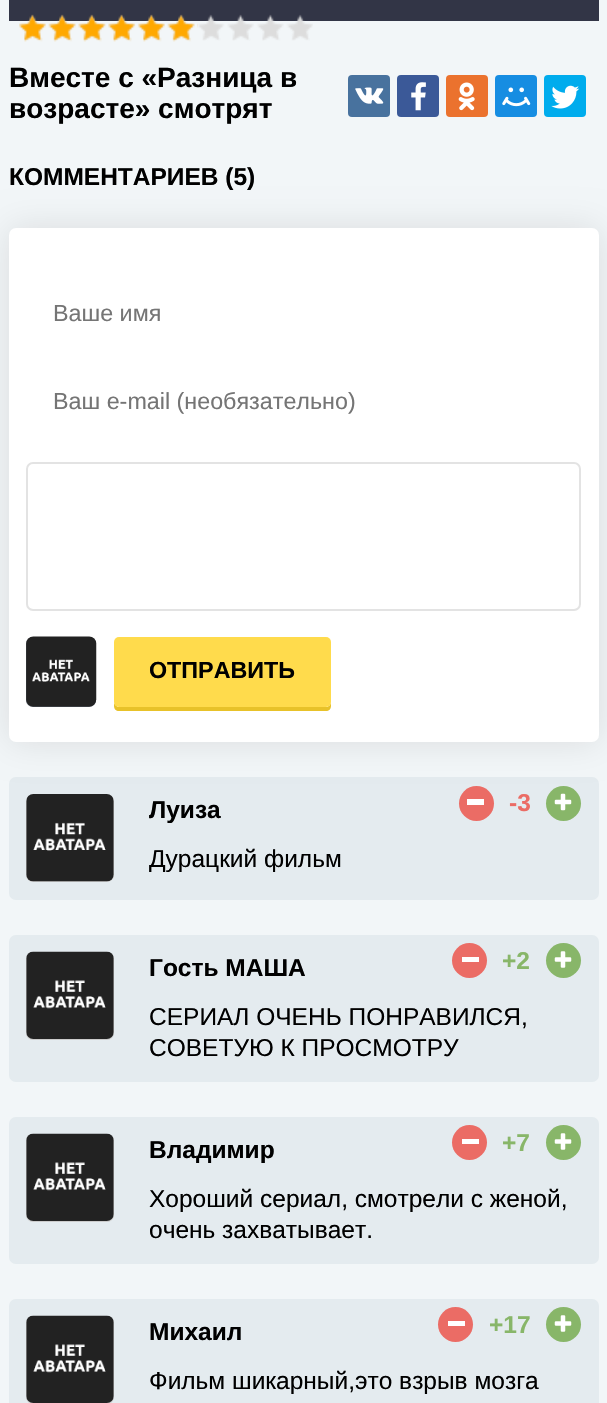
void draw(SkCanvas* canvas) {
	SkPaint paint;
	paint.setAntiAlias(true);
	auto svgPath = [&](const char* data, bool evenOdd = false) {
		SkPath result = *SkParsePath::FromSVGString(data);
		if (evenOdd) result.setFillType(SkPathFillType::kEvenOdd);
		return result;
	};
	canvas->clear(0xfff2f6f8);
	paint.setColor(0xff323546);
	canvas->drawRect(SkRect::MakeXYWH(9, 0, 590, 21), paint);
	canvas->drawImageRect(SkImages::DeferredFromEncodedData(SkData::MakeFromFileName("img1.png")), SkRect::MakeXYWH(19, 14, 294, 27), SkSamplingOptions());
	canvas->drawImageRect(SkImages::DeferredFromEncodedData(SkData::MakeFromFileName("img2.png")), SkRect::MakeXYWH(19, 14, 179, 28), SkSamplingOptions());
	paint.setColor(0xff48729e);
	canvas->drawRoundRect(SkRect::MakeXYWH(348, 75, 42, 42), 4, 4, paint);
	canvas->drawImageRect(SkImages::DeferredFromEncodedData(SkData::MakeFromFileName("img3.png")), SkRect::MakeXYWH(355, 87, 29, 17), SkSamplingOptions());
	paint.setColor(0xff3b5998);
	canvas->drawRoundRect(SkRect::MakeXYWH(397, 75, 42, 42), 4, 4, paint);
	canvas->drawImageRect(SkImages::DeferredFromEncodedData(SkData::MakeFromFileName("img4.png")), SkRect::MakeXYWH(411, 82, 15, 29), SkSamplingOptions());
	paint.setColor(0xffeb722e);
	canvas->drawRoundRect(SkRect::MakeXYWH(446, 75, 42, 42), 4, 4, paint);
	canvas->drawImageRect(SkImages::DeferredFromEncodedData(SkData::MakeFromFileName("img5.png")), SkRect::MakeXYWH(458, 82, 17, 29), SkSamplingOptions());
	paint.setColor(0xff168de2);
	canvas->drawRoundRect(SkRect::MakeXYWH(495, 75, 42, 42), 4, 4, paint);
	canvas->drawImageRect(SkImages::DeferredFromEncodedData(SkData::MakeFromFileName("img6.png")), SkRect::MakeXYWH(502, 87, 29, 20), SkSamplingOptions());
	paint.setColor(0xff00aced);
	canvas->drawRoundRect(SkRect::MakeXYWH(544, 75, 42, 42), 4, 4, paint);
	canvas->drawImageRect(SkImages::DeferredFromEncodedData(SkData::MakeFromFileName("img7.png")), SkRect::MakeXYWH(551, 85, 29, 24), SkSamplingOptions());
	SkFont f1(fontMgr->matchFamilyStyle("Liberation Sans", SkFontStyle::Bold()), 28);
	f1.setSubpixel(true);
	paint.setColor(0xff000000);
	canvas->drawString("Вместе с «Разница в", 9, 87, f1, paint);
	canvas->drawString("возрасте» смотрят", 9, 118, f1, paint);
	SkFont f2(fontMgr->matchFamilyStyle("Liberation Sans", SkFontStyle::Bold()), 24.5);
	f2.setSubpixel(true);
	canvas->drawString("КОММЕНТАРИЕВ (5)", 9, 185, f2, paint);
	paint.setColor(0xffe4ebef);
	canvas->drawRoundRect(SkRect::MakeXYWH(9, 777, 590, 123), 7, 7, paint);
	paint.setColor(0x1a000000);
	paint.setMaskFilter(SkMaskFilter::MakeBlur(kNormal_SkBlurStyle, 17.5));
	canvas->drawRoundRect(SkRect::MakeXYWH(9, 228, 590, 514), 7, 7, paint);
	paint.setMaskFilter(nullptr);
	paint.setColor(0xffffffff);
	canvas->drawRoundRect(SkRect::MakeXYWH(9, 228, 590, 514), 7, 7, paint);
	SkFont f3(fontMgr->matchFamilyStyle("Liberation Sans", SkFontStyle::Normal()), 23.3);
	f3.setSubpixel(true);
	paint.setColor(0xff757575);
	canvas->drawString("Ваше имя", 53, 321, f3, paint);
	canvas->drawString("Ваш e-mail (необязательно)", 53, 409, f3, paint);
	paint.setStroke(true);
	paint.setStrokeWidth(2);
	paint.setColor(0xffe3e3e3);
	canvas->drawRoundRect(SkRect::MakeXYWH(27, 463, 553, 147), 6, 6, paint);
	paint.setStroke(false);
	paint.setColor(0xff4f555f);
	canvas->drawRoundRect(SkRect::MakeXYWH(26, 637, 70, 70), 7, 7, paint);
	canvas->drawImageRect(SkImages::DeferredFromEncodedData(SkData::MakeFromFileName("img8.png")), SkRect::MakeXYWH(26, 636, 71, 71), SkSamplingOptions());
	paint.setColor(0xffe8c229);
	canvas->drawPath(svgPath("M114 703V706C114 709 116 711 119 711H326C329 711 331 709 331 706V644V702C331 705 328 707 326 707H119C117 707 115 705 114 703Z"), paint);
	paint.setColor(0xffffdb4c);
	canvas->drawRoundRect(SkRect::MakeXYWH(114, 637, 217, 70), 5, 5, paint);
	SkFont f4(fontMgr->matchFamilyStyle("Liberation Sans", SkFontStyle::Bold()), 23.3);
	f4.setSubpixel(true);
	paint.setColor(0xff000000);
	canvas->drawString("ОТПРАВИТЬ", 149, 678, f4, paint);
	paint.setColor(0xffcccccc);
	canvas->drawRoundRect(SkRect::MakeXYWH(26, 795, 88, 87), 7, 7, paint);
	canvas->drawImageRect(SkImages::DeferredFromEncodedData(SkData::MakeFromFileName("img9.png")), SkRect::MakeXYWH(26, 794, 88, 88), SkSamplingOptions());
	paint.setColor(0xff000000);
	canvas->drawString("Луиза", 149, 818, f2, paint);
	paint.setColor(0xffeb6c65);
	canvas->drawCircle(476.5, 803.5, 17.5, paint);
	paint.setColor(0xffffffff);
	canvas->drawRect(SkRect::MakeXYWH(467, 799, 17, 6), paint);
	paint.setColor(0xffeb6c65);
	canvas->drawString("-3", 509, 811, f2, paint);
	paint.setColor(0xff88b669);
	canvas->drawCircle(563.5, 803.5, 17.5, paint);
	canvas->drawImageRect(SkImages::DeferredFromEncodedData(SkData::MakeFromFileName("img10.png")), SkRect::MakeXYWH(554, 793, 18, 18), SkSamplingOptions());
	SkFont f5(fontMgr->matchFamilyStyle("Liberation Sans", SkFontStyle::Normal()), 24.5);
	f5.setSubpixel(true);
	paint.setColor(0xff000000);
	canvas->drawString("Дурацкий фильм", 149, 867, f5, paint);
	paint.setColor(0xffe4ebef);
	canvas->drawRoundRect(SkRect::MakeXYWH(9, 935, 590, 147), 7, 7, paint);
	paint.setColor(0xffcccccc);
	canvas->drawRoundRect(SkRect::MakeXYWH(26, 952, 88, 88), 7, 7, paint);
	canvas->drawImageRect(SkImages::DeferredFromEncodedData(SkData::MakeFromFileName("img11.png")), SkRect::MakeXYWH(26, 951, 88, 88), SkSamplingOptions());
	paint.setColor(0xff000000);
	canvas->drawString("Гость МАША", 149, 976, f2, paint);
	paint.setColor(0xffeb6c65);
	canvas->drawCircle(469.5, 960.5, 17.5, paint);
	paint.setColor(0xffffffff);
	canvas->drawRect(SkRect::MakeXYWH(462, 957, 17, 5), paint);
	paint.setColor(0xff88b669);
	canvas->drawString("+2", 502, 969, f2, paint);
	canvas->drawCircle(563.5, 960.5, 17.5, paint);
	canvas->drawImageRect(SkImages::DeferredFromEncodedData(SkData::MakeFromFileName("img12.png")), SkRect::MakeXYWH(554, 951, 18, 17), SkSamplingOptions());
	paint.setColor(0xff000000);
	canvas->drawString("СЕРИАЛ ОЧЕНЬ ПОНРАВИЛСЯ,", 149, 1025, f5, paint);
	canvas->drawString("СОВЕТУЮ К ПРОСМОТРУ", 149, 1056, f5, paint);
	paint.setColor(0xffe4ebef);
	canvas->drawRoundRect(SkRect::MakeXYWH(9, 1117, 590, 147), 7, 7, paint);
	paint.setColor(0xffcccccc);
	canvas->drawRoundRect(SkRect::MakeXYWH(26, 1134, 88, 88), 7, 7, paint);
	canvas->drawImageRect(SkImages::DeferredFromEncodedData(SkData::MakeFromFileName("img11.png")), SkRect::MakeXYWH(26, 1133, 88, 88), SkSamplingOptions());
	paint.setColor(0xff000000);
	canvas->drawString("Владимир", 149, 1158, f2, paint);
	paint.setColor(0xffeb6c65);
	canvas->drawCircle(469.5, 1142.5, 17.5, paint);
	paint.setColor(0xffffffff);
	canvas->drawRect(SkRect::MakeXYWH(462, 1139, 17, 5), paint);
	paint.setColor(0xff88b669);
	canvas->drawString("+7", 502, 1151, f2, paint);
	canvas->drawCircle(563.5, 1142.5, 17.5, paint);
	canvas->drawImageRect(SkImages::DeferredFromEncodedData(SkData::MakeFromFileName("img12.png")), SkRect::MakeXYWH(554, 1133, 18, 17), SkSamplingOptions());
	paint.setColor(0xff000000);
	canvas->drawString("Хороший сериал, смотрели с женой,", 149, 1207, f5, paint);
	canvas->drawString("очень захватывает.", 149, 1238, f5, paint);
	paint.setColor(0xffe4ebef);
	canvas->drawRoundRect(SkRect::MakeXYWH(9, 1299, 590, 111), 7, 7, paint);
	paint.setColor(0xffcccccc);
	canvas->drawRoundRect(SkRect::MakeXYWH(26, 1316, 88, 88), 7, 7, paint);
	canvas->drawImageRect(SkImages::DeferredFromEncodedData(SkData::MakeFromFileName("img13.png")), SkRect::MakeXYWH(26, 1315, 88, 88), SkSamplingOptions());
	paint.setColor(0xff000000);
	canvas->drawString("Михаил", 149, 1340, f2, paint);
	paint.setColor(0xffeb6c65);
	canvas->drawCircle(455.5, 1324.5, 17.5, paint);
	paint.setColor(0xffffffff);
	canvas->drawRect(SkRect::MakeXYWH(448, 1321, 17, 5), paint);
	paint.setColor(0xff88b669);
	canvas->drawString("+17", 489, 1333, f2, paint);
	canvas->drawCircle(563.5, 1324.5, 17.5, paint);
	canvas->drawImageRect(SkImages::DeferredFromEncodedData(SkData::MakeFromFileName("img12.png")), SkRect::MakeXYWH(554, 1315, 18, 17), SkSamplingOptions());
	paint.setColor(0xff000000);
	canvas->drawString("Фильм шикарный,это взрыв мозга", 149, 1389, f5, paint);
}
